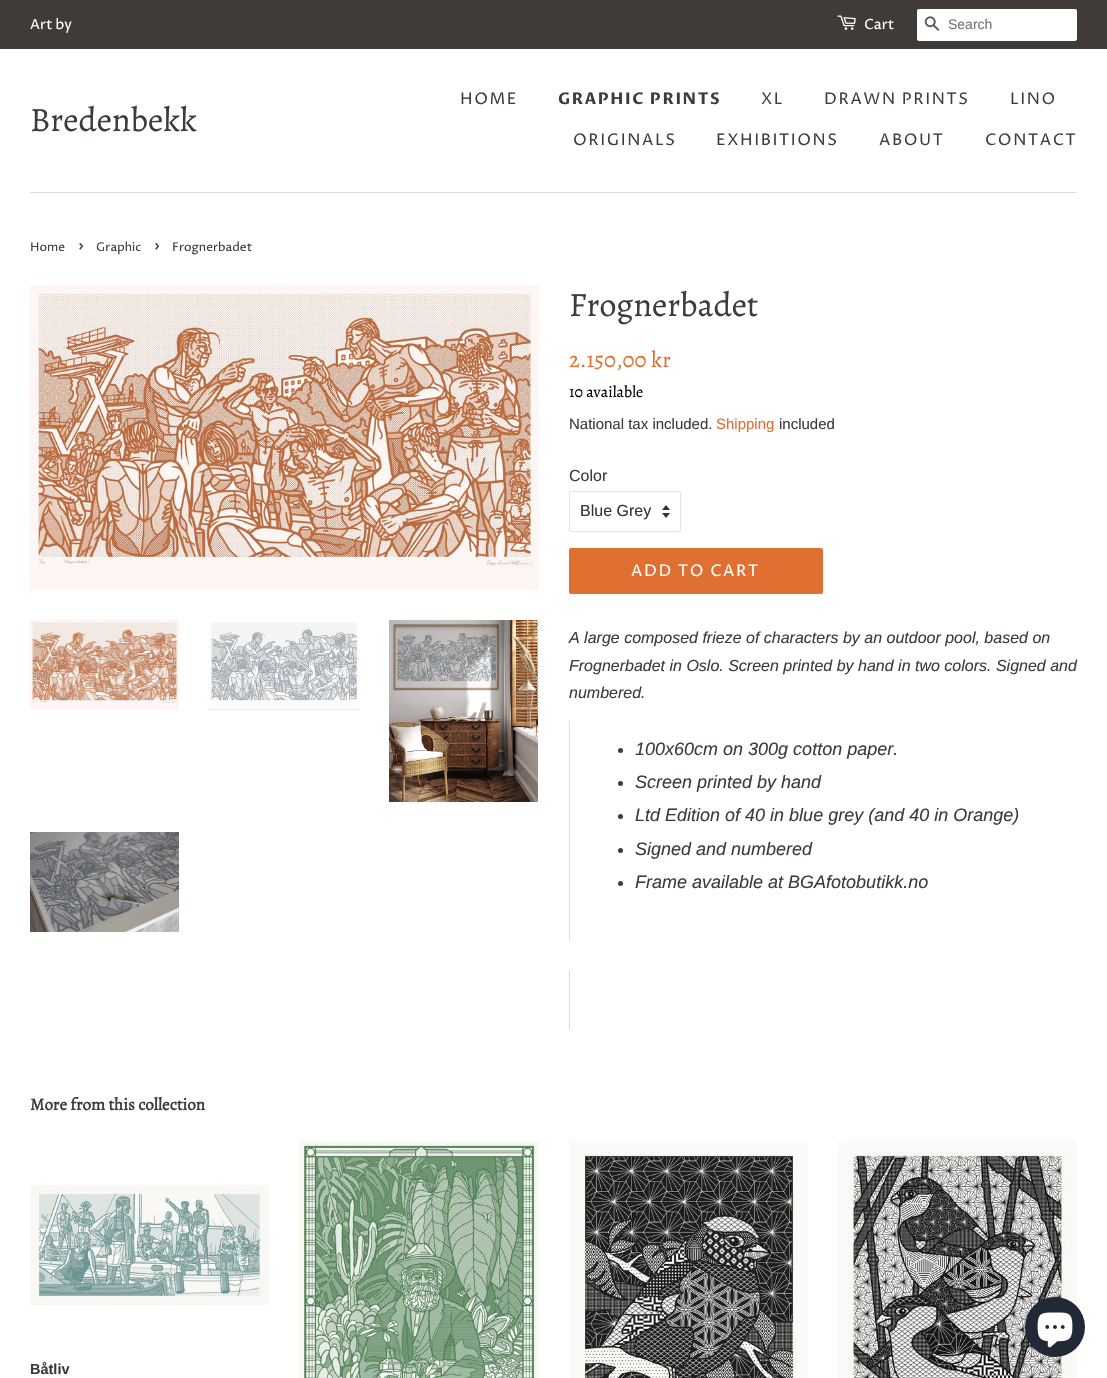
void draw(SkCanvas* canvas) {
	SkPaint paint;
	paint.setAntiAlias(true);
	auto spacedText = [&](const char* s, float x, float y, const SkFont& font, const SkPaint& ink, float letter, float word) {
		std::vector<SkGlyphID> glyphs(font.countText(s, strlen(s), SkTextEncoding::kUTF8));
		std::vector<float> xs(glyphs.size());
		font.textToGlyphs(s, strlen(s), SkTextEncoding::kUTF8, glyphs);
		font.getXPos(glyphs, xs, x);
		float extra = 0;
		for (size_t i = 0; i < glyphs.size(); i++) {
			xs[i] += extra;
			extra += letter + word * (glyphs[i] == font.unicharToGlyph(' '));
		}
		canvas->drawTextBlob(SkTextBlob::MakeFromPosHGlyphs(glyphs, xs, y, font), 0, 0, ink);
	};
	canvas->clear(0xffffffff);
	paint.setColor(0xff403b37);
	canvas->drawRect(SkRect::MakeXYWH(0, 0, 1107, 49), paint);
	SkFont f1(fontMgr->matchFamilyStyle("Proza Libre", SkFontStyle::Normal()), 14);
	f1.setSubpixel(true);
	paint.setColor(0xffffffff);
	canvas->drawString("Art by", 30, 29, f1, paint);
	canvas->drawImageRect(SkImages::DeferredFromEncodedData(SkData::MakeFromFileName("img1.png")), SkRect::MakeXYWH(837, 15, 19, 15), SkSamplingOptions());
	canvas->drawString("Cart", 864, 29, f1, paint);
	canvas->drawRoundRect(SkRect::MakeXYWH(917, 9, 160, 32), 2, 2, paint);
	canvas->drawImageRect(SkImages::DeferredFromEncodedData(SkData::MakeFromFileName("img2.png")), SkRect::MakeXYWH(924, 16, 16, 15), SkSamplingOptions());
	SkFont f2(fontMgr->matchFamilyStyle("Arimo", SkFontStyle::Normal()), 14);
	f2.setSubpixel(true);
	paint.setColor(0xff757575);
	canvas->drawString("Search", 948, 29, f2, paint);
	paint.setColor(0xffdddddd);
	canvas->drawRect(SkRect::MakeXYWH(30, 192, 1047, 1), paint);
	SkFont f3(fontMgr->matchFamilyStyle("Alegreya", SkFontStyle::Normal()), 34);
	f3.setSubpixel(true);
	paint.setColor(0xff403b37);
	canvas->drawString("Bredenbekk", 30, 131, f3, paint);
	SkFont f4(fontMgr->matchFamilyStyle("Proza Libre", SkFontStyle::Normal()), 16);
	f4.setSubpixel(true);
	spacedText("HOME", 460, 104, f4, paint, 1.6, 0);
	SkFont f5(fontMgr->matchFamilyStyle("Proza Libre", SkFontStyle::Bold()), 16);
	f5.setSubpixel(true);
	spacedText("GRAPHIC PRINTS", 558, 104, f5, paint, 1.6, 0);
	spacedText("XL", 761, 104, f4, paint, 1.6, 0);
	spacedText("DRAWN PRINTS", 824, 104, f4, paint, 1.6, 0);
	spacedText("LINO", 1010, 104, f4, paint, 1.6, 0);
	spacedText("ORIGINALS", 573, 145, f4, paint, 1.6, 0);
	spacedText("EXHIBITIONS", 716, 145, f4, paint, 1.6, 0);
	spacedText("ABOUT", 879, 145, f4, paint, 1.6, 0);
	spacedText("CONTACT", 985, 145, f4, paint, 1.6, 0);
	SkFont f6(fontMgr->matchFamilyStyle("Proza Libre", SkFontStyle::Normal()), 12);
	f6.setSubpixel(true);
	canvas->drawString("Home", 30, 251, f6, paint);
	SkFont f7(fontMgr->matchFamilyStyle("Proza Libre", SkFontStyle::Normal()), 17);
	f7.setSubpixel(true);
	canvas->drawString("›", 78, 251, f7, paint);
	canvas->drawString("Graphic", 96, 251, f6, paint);
	canvas->drawString("›", 154, 251, f7, paint);
	canvas->drawString("Frognerbadet", 172, 251, f6, paint);
	canvas->drawImageRect(SkImages::DeferredFromEncodedData(SkData::MakeFromFileName("img3.png")), SkRect::MakeXYWH(30, 285, 509, 305), SkSamplingOptions());
	canvas->drawImageRect(SkImages::DeferredFromEncodedData(SkData::MakeFromFileName("img4.png")), SkRect::MakeXYWH(30, 620, 149, 90), SkSamplingOptions());
	canvas->drawImageRect(SkImages::DeferredFromEncodedData(SkData::MakeFromFileName("img5.png")), SkRect::MakeXYWH(209, 622, 150, 88), SkSamplingOptions());
	canvas->drawImageRect(SkImages::DeferredFromEncodedData(SkData::MakeFromFileName("img6.png")), SkRect::MakeXYWH(389, 620, 149, 182), SkSamplingOptions());
	canvas->drawImageRect(SkImages::DeferredFromEncodedData(SkData::MakeFromFileName("img7.png")), SkRect::MakeXYWH(30, 832, 149, 100), SkSamplingOptions());
	canvas->drawString("Frognerbadet", 569, 316, f3, paint);
	SkFont f8(fontMgr->matchFamilyStyle("Alegreya", SkFontStyle::Normal()), 22.5);
	f8.setSubpixel(true);
	paint.setColor(0xffe06f32);
	canvas->drawString("2.150,00 kr", 569, 367, f8, paint);
	SkFont f9(fontMgr->matchFamilyStyle("Alegreya", SkFontStyle::Normal()), 16);
	f9.setSubpixel(true);
	paint.setColor(0xff000000);
	canvas->drawString("10 available", 569, 397, f9, paint);
	SkFont f10(fontMgr->matchFamilyStyle("Arimo", SkFontStyle::Normal()), 15);
	f10.setSubpixel(true);
	paint.setColor(0xff403b37);
	canvas->drawString("National tax included.", 569, 429, f10, paint);
	paint.setColor(0xffe06f32);
	canvas->drawString("Shipping", 716, 429, f10, paint);
	paint.setColor(0xff403b37);
	canvas->drawString("included", 779, 429, f10, paint);
	SkFont f11(fontMgr->matchFamilyStyle("Arimo", SkFontStyle::Normal()), 16);
	f11.setSubpixel(true);
	canvas->drawString("Color", 569, 481, f11, paint);
	canvas->drawImageRect(SkImages::DeferredFromEncodedData(SkData::MakeFromFileName("img8.png")), SkRect::MakeXYWH(662, 505, 8, 13), SkSamplingOptions());
	paint.setStroke(true);
	paint.setStrokeWidth(1);
	paint.setColor(0xffe2e2e1);
	canvas->drawRoundRect(SkRect::MakeXYWH(569.5, 491.5, 111, 40), 1.5, 1.5, paint);
	paint.setStroke(false);
	paint.setColor(0xff333333);
	canvas->drawString("Blue Grey", 580, 516, f11, paint);
	paint.setColor(0xffe06f32);
	canvas->drawRoundRect(SkRect::MakeXYWH(569, 548, 254, 46), 2, 2, paint);
	paint.setColor(0xffffffff);
	spacedText("ADD TO CART", 631, 576, f4, paint, 1.6, 0);
	SkFont f12(fontMgr->matchFamilyStyle("Arimo", SkFontStyle::Italic()), 16);
	f12.setSubpixel(true);
	paint.setColor(0xff403b37);
	canvas->drawString("A large composed frieze of characters by an outdoor pool, based on", 569, 643, f12, paint);
	canvas->drawString("Frognerbadet in Oslo. Screen printed by hand in two colors. Signed and", 569, 671, f12, paint);
	canvas->drawString("numbered.", 569, 698, f12, paint);
	paint.setColor(0xffdddddd);
	canvas->drawRect(SkRect::MakeXYWH(569, 721, 1, 219), paint);
	paint.setColor(0xff403b37);
	canvas->drawCircle(620.5, 750.5, 2.5, paint);
	SkFont f13(fontMgr->matchFamilyStyle("Arimo", SkFontStyle::Italic()), 18);
	f13.setSubpixel(true);
	canvas->drawString("100x60cm on 300g cotton paper.", 635, 755, f13, paint);
	canvas->drawCircle(620.5, 783.5, 2.5, paint);
	canvas->drawString("Screen printed by hand", 635, 788, f13, paint);
	canvas->drawCircle(620.5, 816.5, 2.5, paint);
	canvas->drawString("Ltd Edition of 40 in blue grey (and 40 in Orange)", 635, 821, f13, paint);
	canvas->drawCircle(620.5, 850.5, 2.5, paint);
	canvas->drawString("Signed and numbered", 635, 855, f13, paint);
	canvas->drawCircle(620.5, 883.5, 2.5, paint);
	canvas->drawString("Frame available at BGAfotobutikk.no", 635, 888, f13, paint);
	paint.setColor(0xffdddddd);
	canvas->drawRect(SkRect::MakeXYWH(569, 970, 1, 60), paint);
	SkFont f14(fontMgr->matchFamilyStyle("Alegreya", SkFontStyle::Bold()), 17);
	f14.setSubpixel(true);
	paint.setColor(0xff403b37);
	canvas->drawString("More from this collection", 30, 1110, f14, paint);
	canvas->drawImageRect(SkImages::DeferredFromEncodedData(SkData::MakeFromFileName("img9.png")), SkRect::MakeXYWH(30, 1185, 239, 120), SkSamplingOptions());
	SkFont f15(fontMgr->matchFamilyStyle("Arimo", SkFontStyle::Bold()), 14.5);
	f15.setSubpixel(true);
	canvas->drawString("Båtliv", 30, 1374, f15, paint);
	canvas->drawImageRect(SkImages::DeferredFromEncodedData(SkData::MakeFromFileName("img10.png")), SkRect::MakeXYWH(299, 1141, 240, 237), SkSamplingOptions());
	canvas->drawImageRect(SkImages::DeferredFromEncodedData(SkData::MakeFromFileName("img11.png")), SkRect::MakeXYWH(569, 1141, 239, 237), SkSamplingOptions());
	canvas->drawImageRect(SkImages::DeferredFromEncodedData(SkData::MakeFromFileName("img12.png")), SkRect::MakeXYWH(838, 1141, 239, 237), SkSamplingOptions());
	paint.setColor(0xff202a36);
	canvas->drawCircle(1055, 1327, 30, paint);
	canvas->drawImageRect(SkImages::DeferredFromEncodedData(SkData::MakeFromFileName("img13.png")), SkRect::MakeXYWH(1037, 1312, 36, 36), SkSamplingOptions());
}
